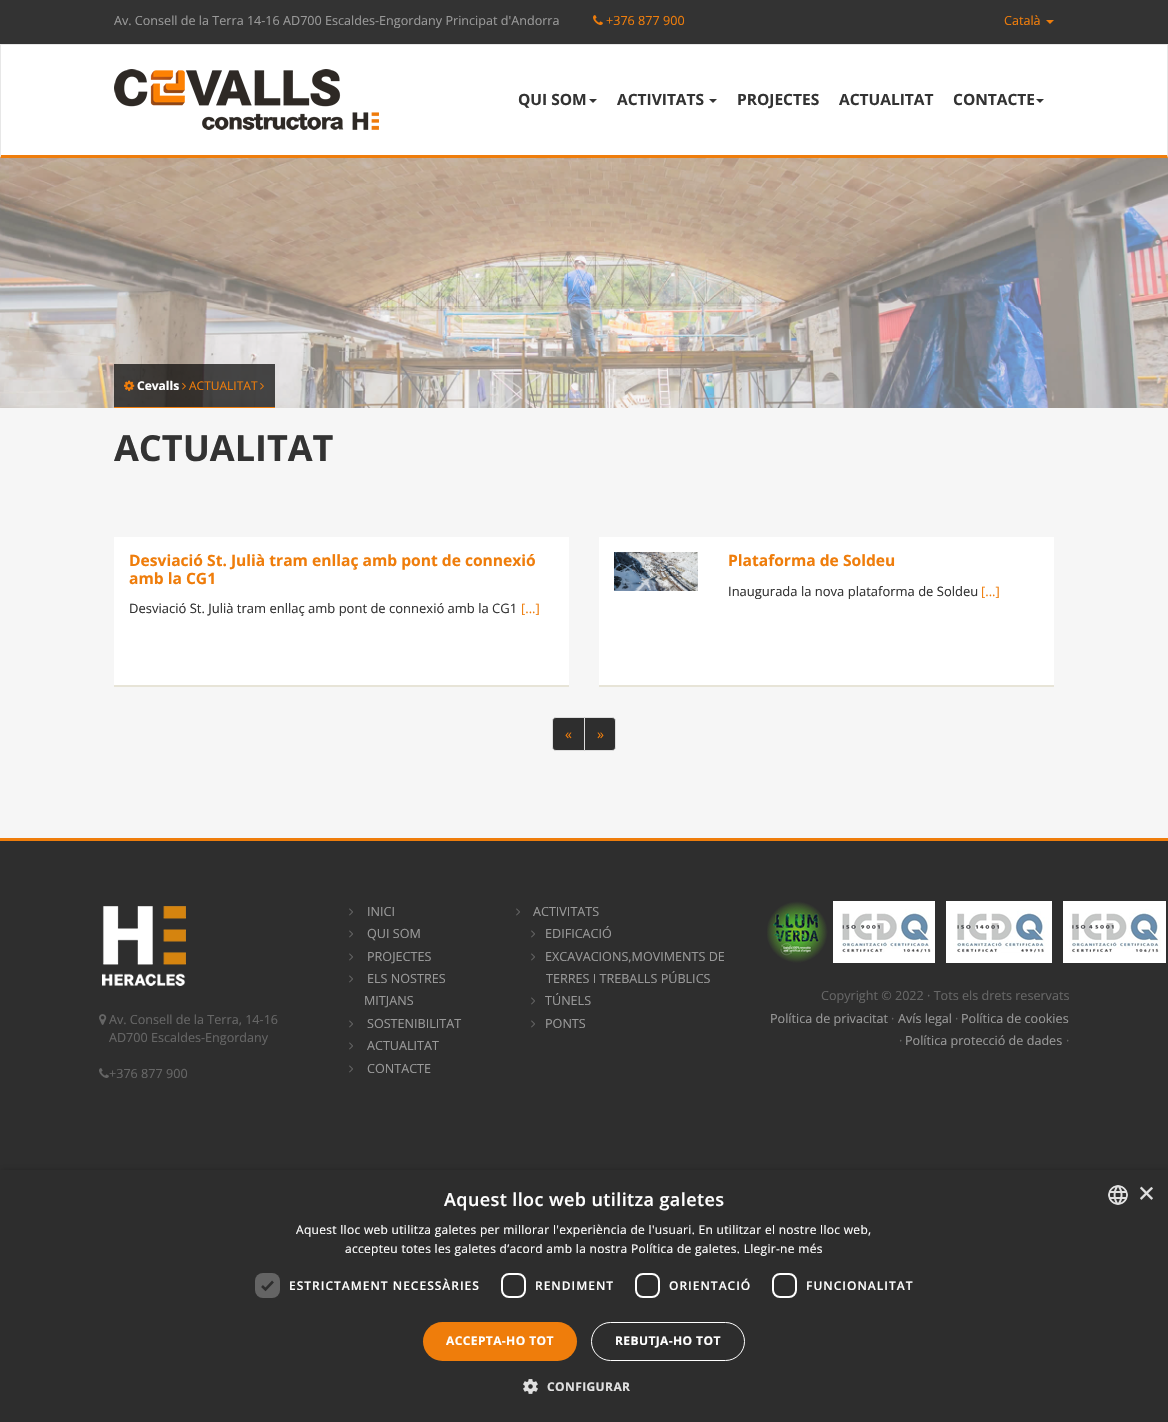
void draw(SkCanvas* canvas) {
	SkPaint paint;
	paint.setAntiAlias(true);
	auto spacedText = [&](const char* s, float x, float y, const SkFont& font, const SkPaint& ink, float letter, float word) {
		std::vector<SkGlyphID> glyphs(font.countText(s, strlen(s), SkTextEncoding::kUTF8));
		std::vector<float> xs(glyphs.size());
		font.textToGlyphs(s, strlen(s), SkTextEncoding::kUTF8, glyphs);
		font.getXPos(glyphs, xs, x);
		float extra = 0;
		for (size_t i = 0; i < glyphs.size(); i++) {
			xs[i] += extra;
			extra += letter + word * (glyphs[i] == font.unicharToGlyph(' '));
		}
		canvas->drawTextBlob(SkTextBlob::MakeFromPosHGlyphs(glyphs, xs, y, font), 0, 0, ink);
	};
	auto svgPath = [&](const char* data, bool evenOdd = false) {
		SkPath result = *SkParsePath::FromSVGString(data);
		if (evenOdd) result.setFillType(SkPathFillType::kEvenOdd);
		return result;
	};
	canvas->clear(0xffffffff);
	paint.setColor(0xff333333);
	canvas->drawRect(SkRect::MakeXYWH(0, 0, 1168, 44), paint);
	SkFont f1(fontMgr->matchFamilyStyle("Open Sans", SkFontStyle::Normal()), 12.6);
	f1.setSubpixel(true);
	paint.setColor(0xff999999);
	canvas->drawString("Av. Consell de la Terra 14-16 AD700 Escaldes-Engordany Principat d'Andorra", 114, 25, f1, paint);
	canvas->drawImageRect(SkImages::DeferredFromEncodedData(SkData::MakeFromFileName("img1.png")), SkRect::MakeXYWH(593, 15, 10, 10), SkSamplingOptions());
	paint.setColor(0xffef7d0b);
	canvas->drawString("+376 877 900", 606, 25, f1, paint);
	canvas->drawString("Català", 1004, 25, f1, paint);
	canvas->drawPath(svgPath("M1046 20H1054L1050 24Z"), paint);
	paint.setColor(0xffe7e7e7);
	canvas->drawRect(SkRect::MakeXYWH(0, 44, 1168, 1), paint);
	canvas->drawPath(svgPath("M1168 44V158L1167 155V45Z"), paint);
	paint.setColor(0xffef7d0b);
	canvas->drawPath(svgPath("M1168 158H0L1 155H1167Z"), paint);
	paint.setColor(0xffe7e7e7);
	canvas->drawPath(svgPath("M0 158V44L1 45V155Z"), paint);
	canvas->drawImageRect(SkImages::DeferredFromEncodedData(SkData::MakeFromFileName("img2.png")), SkRect::MakeXYWH(114, 69, 265, 61), SkSamplingOptions());
	SkFont f2(fontMgr->matchFamilyStyle("Open Sans", SkFontStyle::Bold()), 15.5);
	f2.setSubpixel(true);
	paint.setColor(0xff333333);
	canvas->drawString("QUI SOM", 518, 105, f2, paint);
	canvas->drawPath(svgPath("M589 99H597L593 103Z"), paint);
	canvas->drawString("ACTIVITATS", 617, 105, f2, paint);
	canvas->drawPath(svgPath("M709 99H717L713 103Z"), paint);
	canvas->drawString("PROJECTES", 737, 105, f2, paint);
	canvas->drawString("ACTUALITAT", 839, 105, f2, paint);
	canvas->drawString("CONTACTE", 953, 105, f2, paint);
	canvas->drawPath(svgPath("M1036 99H1044L1040 103Z"), paint);
	canvas->drawImageRect(SkImages::DeferredFromEncodedData(SkData::MakeFromFileName("img3.png")), SkRect::MakeXYWH(0, 158, 1168, 250), SkSamplingOptions());
	paint.setColor(0xb3000000);
	canvas->drawRect(SkRect::MakeXYWH(114, 364, 161, 43), paint);
	paint.setColor(0xffef7d0b);
	canvas->drawRect(SkRect::MakeXYWH(114, 407, 161, 1), paint);
	canvas->drawImageRect(SkImages::DeferredFromEncodedData(SkData::MakeFromFileName("img4.png")), SkRect::MakeXYWH(124, 380, 11, 11), SkSamplingOptions());
	SkFont f3(fontMgr->matchFamilyStyle("Open Sans", SkFontStyle::Bold()), 12);
	f3.setSubpixel(true);
	paint.setColor(0xffffffff);
	canvas->drawString("Cevalls", 137, 390, f3, paint);
	canvas->drawImageRect(SkImages::DeferredFromEncodedData(SkData::MakeFromFileName("img5.png")), SkRect::MakeXYWH(182, 382, 4, 8), SkSamplingOptions());
	SkFont f4(fontMgr->matchFamilyStyle("Open Sans", SkFontStyle::Normal()), 12);
	f4.setSubpixel(true);
	paint.setColor(0xffef7d0b);
	canvas->drawString("ACTUALITAT", 189, 390, f4, paint);
	canvas->drawImageRect(SkImages::DeferredFromEncodedData(SkData::MakeFromFileName("img6.png")), SkRect::MakeXYWH(260, 382, 4, 8), SkSamplingOptions());
	paint.setColor(0xfff6f6f6);
	canvas->drawRect(SkRect::MakeXYWH(0, 408, 1168, 430), paint);
	SkFont f5(fontMgr->matchFamilyStyle("Open Sans", SkFontStyle::Bold()), 36);
	f5.setSubpixel(true);
	paint.setColor(0xff333333);
	canvas->drawString("ACTUALITAT", 114, 461, f5, paint);
	paint.setColor(0xffffffff);
	canvas->drawRect(SkRect::MakeXYWH(114, 537, 455, 148), paint);
	paint.setColor(0xffe7e4d7);
	canvas->drawRect(SkRect::MakeXYWH(114, 685, 455, 2), paint);
	SkFont f6(fontMgr->matchFamilyStyle("Open Sans", SkFontStyle::Bold()), 15.6);
	f6.setSubpixel(true);
	paint.setColor(0xffef7d0b);
	canvas->drawString("Desviació St. Julià tram enllaç amb pont de connexió", 129, 566, f6, paint);
	canvas->drawString("amb la CG1", 129, 584, f6, paint);
	SkFont f7(fontMgr->matchFamilyStyle("Open Sans", SkFontStyle::Normal()), 13);
	f7.setSubpixel(true);
	paint.setColor(0xff333333);
	canvas->drawString("Desviació St. Julià tram enllaç amb pont de connexió amb la CG1", 129, 613, f7, paint);
	paint.setColor(0xffef7d0b);
	canvas->drawString("[...]", 521, 613, f7, paint);
	paint.setColor(0xffffffff);
	canvas->drawRect(SkRect::MakeXYWH(599, 537, 455, 148), paint);
	paint.setColor(0xffe7e4d7);
	canvas->drawRect(SkRect::MakeXYWH(599, 685, 455, 2), paint);
	canvas->drawImageRect(SkImages::DeferredFromEncodedData(SkData::MakeFromFileName("img7.png")), SkRect::MakeXYWH(614, 552, 84, 39), SkSamplingOptions());
	paint.setColor(0xffef7d0b);
	canvas->drawString("Plataforma de Soldeu", 728, 566, f6, paint);
	paint.setColor(0xff333333);
	canvas->drawString("Inaugurada la nova plataforma de Soldeu", 728, 596, f7, paint);
	paint.setColor(0xffef7d0b);
	canvas->drawString("[...]", 981, 596, f7, paint);
	paint.setColor(0xff2e2e2e);
	canvas->drawPath(svgPath("M556 717.5H584.5V750.5H556C554 750.5 552.5 749 552.5 747V721C552.5 719 554 717.5 556 717.5Z"), paint);
	paint.setStroke(true);
	paint.setStrokeWidth(1);
	paint.setColor(0xffdddddd);
	canvas->drawPath(svgPath("M556 717.5H584.5V750.5H556C554 750.5 552.5 749 552.5 747V721C552.5 719 554 717.5 556 717.5Z"), paint);
	SkFont f8(fontMgr->matchFamilyStyle("Open Sans", SkFontStyle::Normal()), 14);
	f8.setSubpixel(true);
	paint.setStroke(false);
	paint.setColor(0xffef7d0b);
	canvas->drawString("«", 565, 739, f8, paint);
	paint.setColor(0xff2e2e2e);
	canvas->drawPath(svgPath("M584.5 717.5H612C614 717.5 615.5 719 615.5 721V747C615.5 749 614 750.5 612 750.5H584.5Z"), paint);
	paint.setStroke(true);
	paint.setColor(0xffdddddd);
	canvas->drawPath(svgPath("M584.5 717.5H612C614 717.5 615.5 719 615.5 721V747C615.5 749 614 750.5 612 750.5H584.5Z"), paint);
	paint.setStroke(false);
	paint.setColor(0xffef7d0b);
	canvas->drawString("»", 597, 739, f8, paint);
	paint.setColor(0xff2e2e2e);
	canvas->drawRect(SkRect::MakeXYWH(0, 841, 1168, 329), paint);
	paint.setColor(0xffef7d0b);
	canvas->drawRect(SkRect::MakeXYWH(0, 838, 1168, 3), paint);
	canvas->drawImageRect(SkImages::DeferredFromEncodedData(SkData::MakeFromFileName("img8.png")), SkRect::MakeXYWH(102, 906, 84, 80), SkSamplingOptions());
	canvas->drawImageRect(SkImages::DeferredFromEncodedData(SkData::MakeFromFileName("img9.png")), SkRect::MakeXYWH(99, 1014, 8, 11), SkSamplingOptions());
	paint.setColor(0xff666666);
	canvas->drawString("Av. Consell de la Terra, 14-16", 109, 1024, f1, paint);
	canvas->drawString("AD700 Escaldes-Engordany", 109, 1042, f1, paint);
	canvas->drawImageRect(SkImages::DeferredFromEncodedData(SkData::MakeFromFileName("img10.png")), SkRect::MakeXYWH(99, 1068, 10, 10), SkSamplingOptions());
	canvas->drawString("+376 877 900", 109, 1078, f1, paint);
	canvas->drawImageRect(SkImages::DeferredFromEncodedData(SkData::MakeFromFileName("img11.png")), SkRect::MakeXYWH(349, 908, 4, 8), SkSamplingOptions());
	paint.setColor(0xff999999);
	canvas->drawString("INICI", 367, 916, f1, paint);
	canvas->drawImageRect(SkImages::DeferredFromEncodedData(SkData::MakeFromFileName("img11.png")), SkRect::MakeXYWH(349, 930, 4, 8), SkSamplingOptions());
	canvas->drawString("QUI SOM", 367, 938, f1, paint);
	canvas->drawImageRect(SkImages::DeferredFromEncodedData(SkData::MakeFromFileName("img11.png")), SkRect::MakeXYWH(349, 953, 4, 8), SkSamplingOptions());
	canvas->drawString("PROJECTES", 367, 961, f1, paint);
	canvas->drawImageRect(SkImages::DeferredFromEncodedData(SkData::MakeFromFileName("img11.png")), SkRect::MakeXYWH(349, 975, 4, 8), SkSamplingOptions());
	canvas->drawString("ELS NOSTRES", 367, 983, f1, paint);
	canvas->drawString("MITJANS", 364, 1005, f1, paint);
	canvas->drawImageRect(SkImages::DeferredFromEncodedData(SkData::MakeFromFileName("img11.png")), SkRect::MakeXYWH(349, 1020, 4, 8), SkSamplingOptions());
	canvas->drawString("SOSTENIBILITAT", 367, 1028, f1, paint);
	canvas->drawImageRect(SkImages::DeferredFromEncodedData(SkData::MakeFromFileName("img11.png")), SkRect::MakeXYWH(349, 1042, 4, 8), SkSamplingOptions());
	canvas->drawString("ACTUALITAT", 367, 1050, f1, paint);
	canvas->drawImageRect(SkImages::DeferredFromEncodedData(SkData::MakeFromFileName("img11.png")), SkRect::MakeXYWH(349, 1065, 4, 8), SkSamplingOptions());
	canvas->drawString("CONTACTE", 367, 1073, f1, paint);
	canvas->drawImageRect(SkImages::DeferredFromEncodedData(SkData::MakeFromFileName("img11.png")), SkRect::MakeXYWH(516, 908, 4, 8), SkSamplingOptions());
	canvas->drawString("ACTIVITATS", 533, 916, f1, paint);
	canvas->drawImageRect(SkImages::DeferredFromEncodedData(SkData::MakeFromFileName("img11.png")), SkRect::MakeXYWH(531, 930, 4, 8), SkSamplingOptions());
	canvas->drawString("EDIFICACIÓ", 545, 938, f1, paint);
	canvas->drawImageRect(SkImages::DeferredFromEncodedData(SkData::MakeFromFileName("img11.png")), SkRect::MakeXYWH(531, 953, 4, 8), SkSamplingOptions());
	canvas->drawString("EXCAVACIONS,MOVIMENTS DE", 545, 961, f1, paint);
	canvas->drawString("TERRES I TREBALLS PÚBLICS", 546, 983, f1, paint);
	canvas->drawImageRect(SkImages::DeferredFromEncodedData(SkData::MakeFromFileName("img11.png")), SkRect::MakeXYWH(531, 997, 4, 8), SkSamplingOptions());
	canvas->drawString("TÚNELS", 545, 1005, f1, paint);
	canvas->drawImageRect(SkImages::DeferredFromEncodedData(SkData::MakeFromFileName("img11.png")), SkRect::MakeXYWH(531, 1020, 4, 8), SkSamplingOptions());
	canvas->drawString("PONTS", 545, 1028, f1, paint);
	canvas->drawImageRect(SkImages::DeferredFromEncodedData(SkData::MakeFromFileName("img12.png")), SkRect::MakeXYWH(767, 901, 399, 62), SkSamplingOptions());
	paint.setColor(0xff666666);
	canvas->drawString("Copyright © 2022 · Tots els drets reservats", 821, 1000, f1, paint);
	paint.setColor(0xff999999);
	canvas->drawString("Política de privacitat", 770, 1023, f1, paint);
	paint.setColor(0xff666666);
	canvas->drawString("·", 891, 1023, f1, paint);
	paint.setColor(0xff999999);
	canvas->drawString("Avís legal", 898, 1023, f1, paint);
	paint.setColor(0xff666666);
	canvas->drawString("·", 955, 1023, f1, paint);
	paint.setColor(0xff999999);
	canvas->drawString("Política de cookies", 961, 1023, f1, paint);
	paint.setColor(0xff666666);
	canvas->drawString("·", 899, 1045, f1, paint);
	paint.setColor(0xff999999);
	canvas->drawString("Política protecció de dades", 905, 1045, f1, paint);
	paint.setColor(0xff666666);
	canvas->drawString("·", 1066, 1045, f1, paint);
	paint.setColor(0x59000000);
	paint.setMaskFilter(SkMaskFilter::MakeBlur(kNormal_SkBlurStyle, 4));
	canvas->drawRect(SkRect::MakeXYWH(1, 1172, 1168, 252), paint);
	paint.setMaskFilter(nullptr);
	paint.setColor(0xff2d2d2d);
	canvas->drawRect(SkRect::MakeXYWH(0, 1170, 1168, 252), paint);
	SkFont f9(fontMgr->matchFamilyStyle("Open Sans", SkFontStyle(600, SkFontStyle::kNormal_Width, SkFontStyle::kUpright_Slant)), 18);
	f9.setSubpixel(true);
	paint.setColor(0xffffffff);
	spacedText("Aquest lloc web utilitza galetes", 444, 1206, f9, paint, 0.4, 0);
	canvas->drawImageRect(SkImages::DeferredFromEncodedData(SkData::MakeFromFileName("img13.png")), SkRect::MakeXYWH(1108, 1185, 20, 20), SkSamplingOptions());
	SkFont f10(fontMgr->matchFamilyStyle("Liberation Sans", SkFontStyle::Normal()), 29);
	f10.setSubpixel(true);
	paint.setColor(0xffe0e0e0);
	canvas->drawString("×", 1138, 1203, f10, paint);
	paint.setColor(0xffffffff);
	spacedText("Aquest lloc web utilitza galetes per millorar l'experiència de l'usuari. En utilitzar el nostre lloc web,", 296, 1234, f4, paint, 0.3, 0);
	spacedText("accepteu totes les galetes d’acord amb la nostra Política de galetes. Llegir-ne més", 345, 1253, f4, paint, 0.3, 0);
	paint.setColor(0xff646464);
	canvas->drawRoundRect(SkRect::MakeXYWH(255, 1273, 25, 25), 8, 8, paint);
	paint.setStroke(true);
	paint.setStrokeWidth(2.6);
	paint.setColor(0xff2d2d2d);
	canvas->drawPath(svgPath("M262 1286L265.5 1289.5L273 1281.5"), paint);
	SkFont f11(fontMgr->matchFamilyStyle("Open Sans", SkFontStyle(600, SkFontStyle::kNormal_Width, SkFontStyle::kUpright_Slant)), 12);
	f11.setSubpixel(true);
	paint.setStroke(false);
	paint.setColor(0xffffffff);
	spacedText("ESTRICTAMENT NECESSÀRIES", 289, 1290, f11, paint, 1, 0);
	paint.setStroke(true);
	paint.setStrokeWidth(2);
	canvas->drawRoundRect(SkRect::MakeXYWH(502, 1274, 23, 23), 7, 7, paint);
	paint.setStroke(false);
	spacedText("RENDIMENT", 535, 1290, f11, paint, 1, 0);
	paint.setStroke(true);
	canvas->drawRoundRect(SkRect::MakeXYWH(636, 1274, 23, 23), 7, 7, paint);
	paint.setStroke(false);
	spacedText("ORIENTACIÓ", 669, 1290, f11, paint, 1, 0);
	paint.setStroke(true);
	canvas->drawRoundRect(SkRect::MakeXYWH(773, 1274, 23, 23), 7, 7, paint);
	paint.setStroke(false);
	spacedText("FUNCIONALITAT", 806, 1290, f11, paint, 1, 0);
	paint.setColor(0xffef7d0b);
	canvas->drawRoundRect(SkRect::MakeXYWH(423, 1322, 154, 39), 19.5, 19.5, paint);
	paint.setColor(0xffffffff);
	spacedText("ACCEPTA-HO TOT", 446, 1345, f3, paint, 0.4, 0);
	paint.setStroke(true);
	paint.setStrokeWidth(1);
	canvas->drawRoundRect(SkRect::MakeXYWH(591.5, 1322.5, 153, 38), 19, 19, paint);
	paint.setStroke(false);
	spacedText("REBUTJA-HO TOT", 615, 1345, f3, paint, 0.4, 0);
	canvas->drawImageRect(SkImages::DeferredFromEncodedData(SkData::MakeFromFileName("img14.png")), SkRect::MakeXYWH(523, 1379, 15, 15), SkSamplingOptions());
	paint.setColor(0xffe0e0e0);
	spacedText("CONFIGURAR", 547, 1391, f3, paint, 0.4, 0);
}
